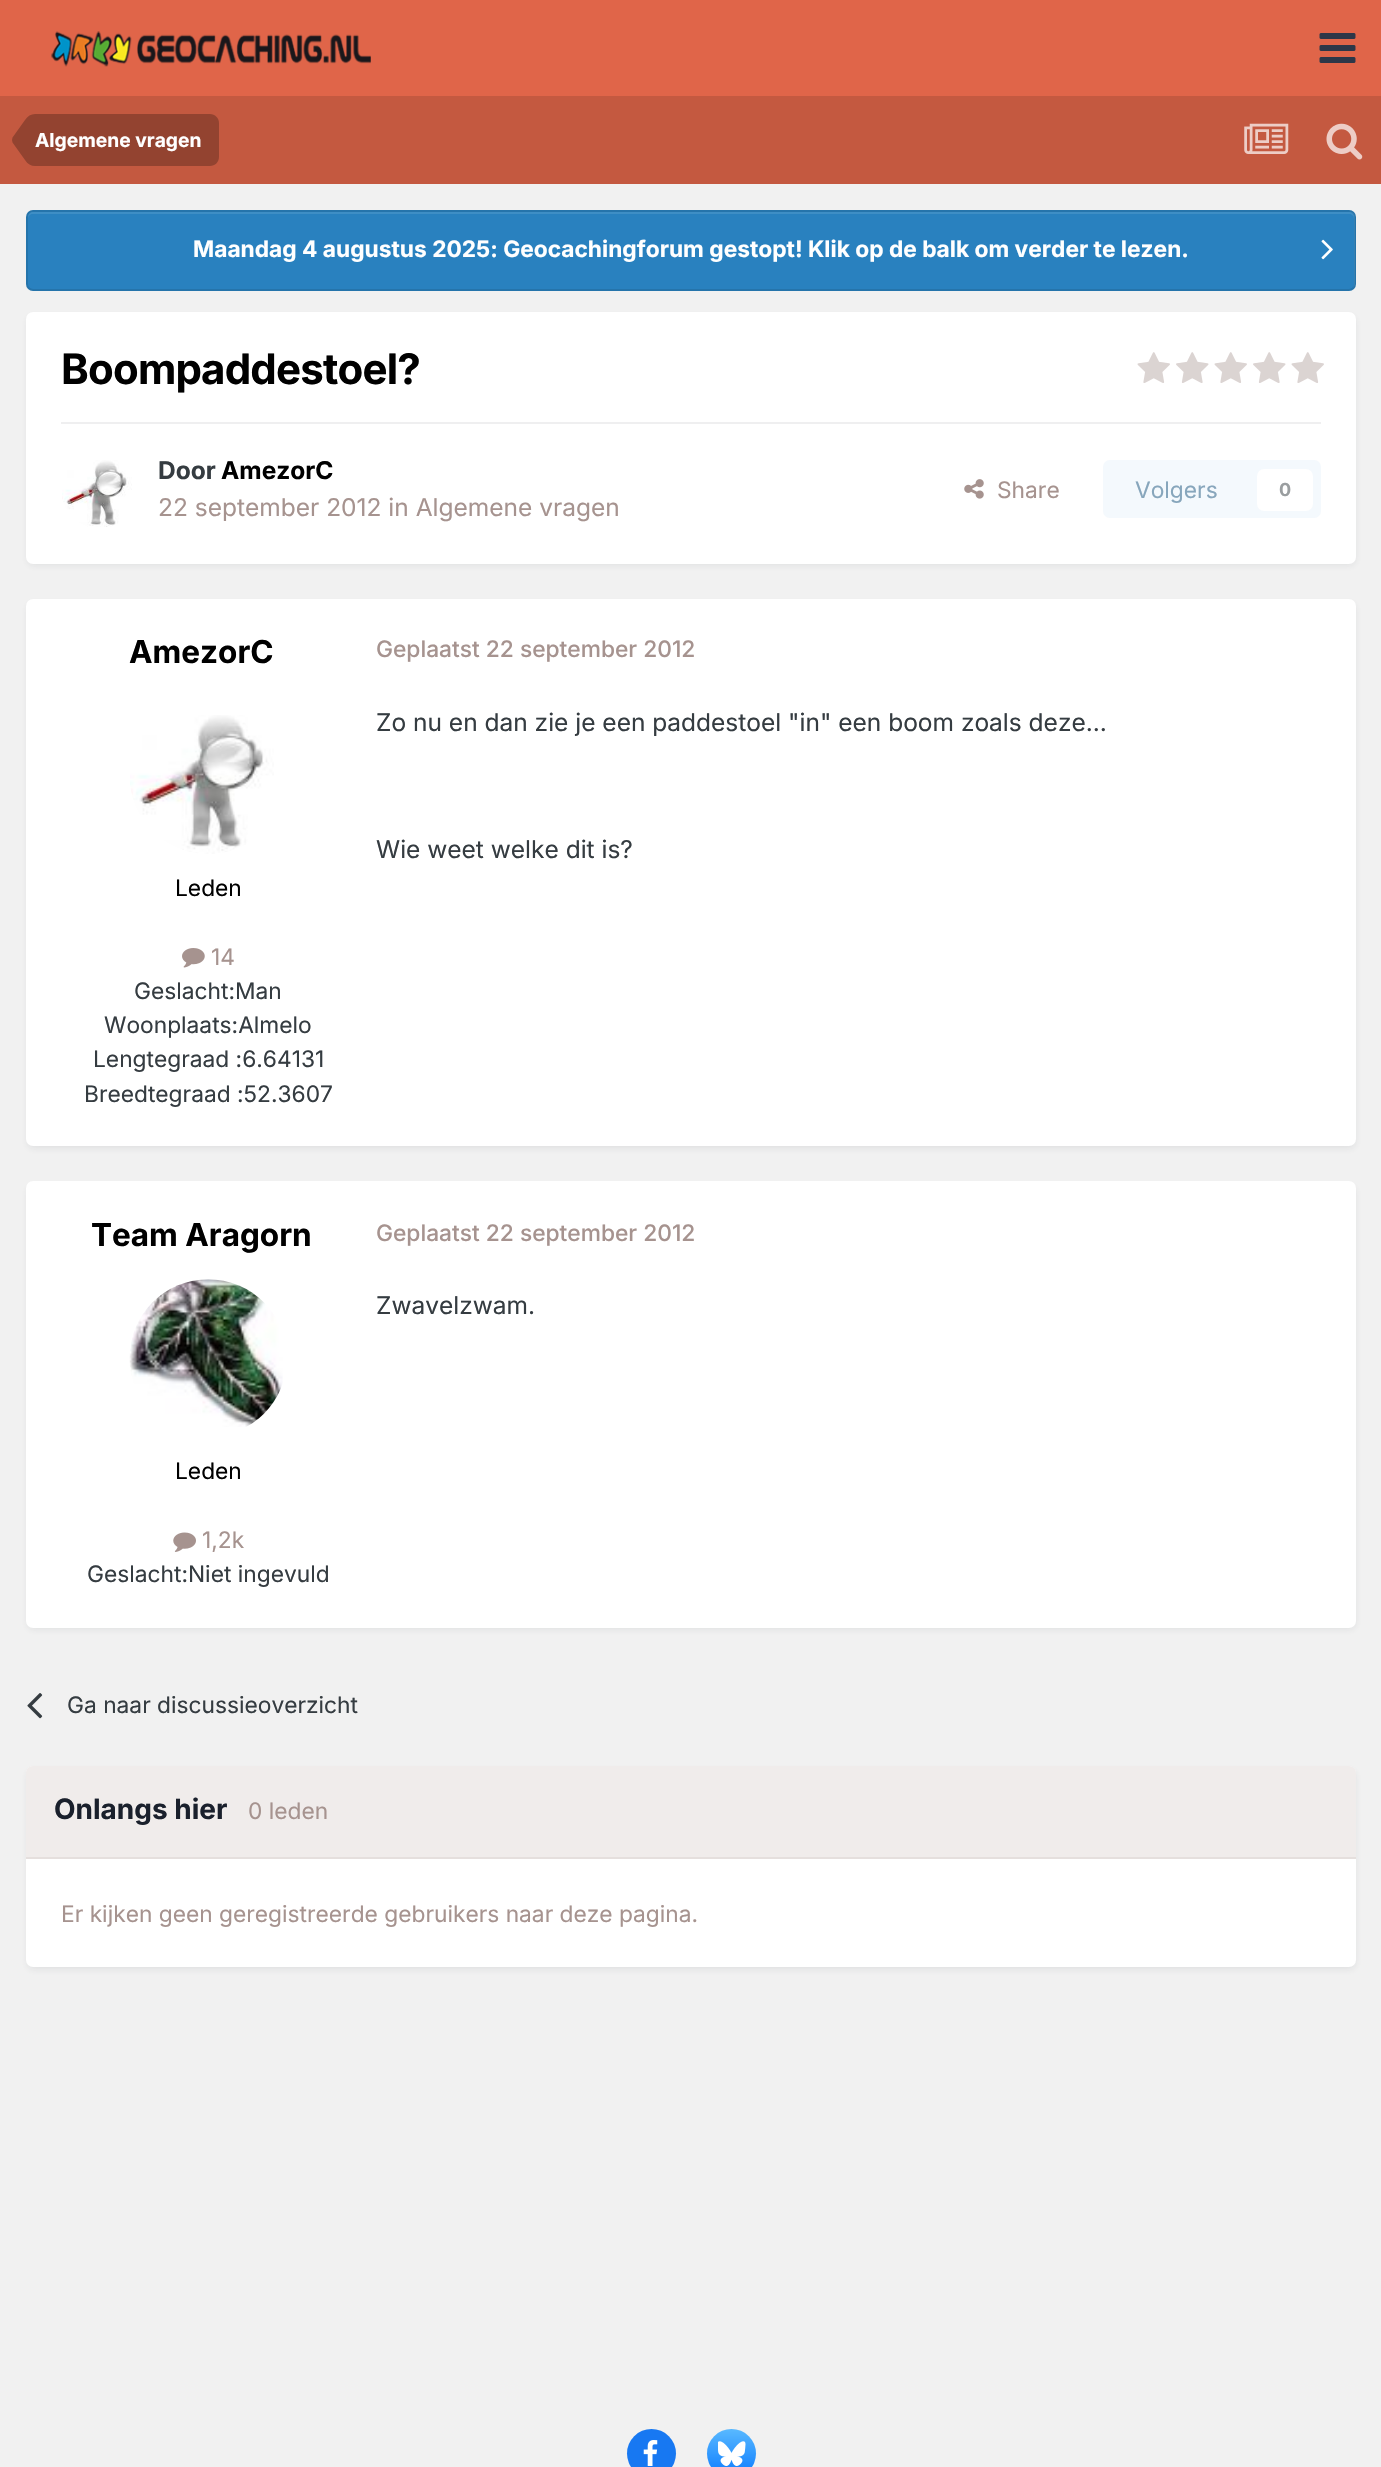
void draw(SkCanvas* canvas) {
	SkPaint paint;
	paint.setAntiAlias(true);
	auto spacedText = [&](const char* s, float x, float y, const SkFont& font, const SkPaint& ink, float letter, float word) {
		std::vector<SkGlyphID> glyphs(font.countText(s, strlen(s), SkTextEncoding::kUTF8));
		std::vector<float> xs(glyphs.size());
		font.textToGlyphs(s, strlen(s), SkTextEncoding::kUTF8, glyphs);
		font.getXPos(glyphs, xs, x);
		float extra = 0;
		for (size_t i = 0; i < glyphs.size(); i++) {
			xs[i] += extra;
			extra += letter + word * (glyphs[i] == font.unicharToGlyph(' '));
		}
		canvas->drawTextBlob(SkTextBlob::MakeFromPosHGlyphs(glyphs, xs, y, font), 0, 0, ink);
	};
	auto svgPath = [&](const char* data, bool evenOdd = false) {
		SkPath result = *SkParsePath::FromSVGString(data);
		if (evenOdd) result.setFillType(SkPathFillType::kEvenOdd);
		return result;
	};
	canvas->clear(0xfff1f1f1);
	paint.setColor(0xffe06549);
	canvas->drawRect(SkRect::MakeXYWH(0, 0, 1381, 96), paint);
	canvas->drawImageRect(SkImages::DeferredFromEncodedData(SkData::MakeFromFileName("img1.png")), SkRect::MakeXYWH(51, 31, 320, 36), SkSamplingOptions());
	canvas->drawImageRect(SkImages::DeferredFromEncodedData(SkData::MakeFromFileName("img2.png")), SkRect::MakeXYWH(1319, 33, 37, 30), SkSamplingOptions());
	paint.setColor(0xffc45940);
	canvas->drawRect(SkRect::MakeXYWH(0, 96, 1381, 88), paint);
	paint.setColor(0xff934330);
	canvas->drawPath(svgPath("M35 114H210C215 114 219 118 219 123V157C219 162 215 166 210 166H35Z"), paint);
	canvas->drawPath(svgPath("M35 140V166C31 166 27.5 164 25 160L12.5 142.5L12 140ZM35 140H12L12.5 137.5L25 120C27.5 116 31 114 35 114Z"), paint);
	SkFont f1(fontMgr->matchFamilyStyle("Inter", SkFontStyle::Bold()), 19.25);
	f1.setSubpixel(true);
	paint.setColor(0xffffffff);
	canvas->drawString("Algemene vragen", 35, 147, f1, paint);
	canvas->drawImageRect(SkImages::DeferredFromEncodedData(SkData::MakeFromFileName("img3.png")), SkRect::MakeXYWH(1244, 123, 45, 31), SkSamplingOptions());
	canvas->drawImageRect(SkImages::DeferredFromEncodedData(SkData::MakeFromFileName("img4.png")), SkRect::MakeXYWH(1326, 123, 37, 37), SkSamplingOptions());
	paint.setColor(0xff2981bf);
	canvas->drawRoundRect(SkRect::MakeXYWH(26, 210, 1330, 81), 7, 7, paint);
	paint.setColor(0xff3e8ec5);
	canvas->drawPath(svgPath("M33 214H1349C1352 214 1354 216 1354 219V285L1353 288C1354 287 1355 285 1355 284V217C1355 214 1353 212 1350 212H33C30 212 28 214 28 217V219C28 216 30 214 33 214Z"), paint);
	paint.setStroke(true);
	paint.setStrokeWidth(2);
	paint.setColor(0x1a000000);
	canvas->drawRoundRect(SkRect::MakeXYWH(27, 211, 1328, 79), 6, 6, paint);
	SkFont f2(fontMgr->matchFamilyStyle("Inter", SkFontStyle::Bold()), 22.75);
	f2.setSubpixel(true);
	paint.setStroke(false);
	paint.setColor(0xffffffff);
	canvas->drawString("Maandag 4 augustus 2025: Geocachingforum gestopt! Klik op de balk om verder te lezen.", 193, 257, f2, paint);
	canvas->drawImageRect(SkImages::DeferredFromEncodedData(SkData::MakeFromFileName("img5.png")), SkRect::MakeXYWH(1321, 239, 12, 21), SkSamplingOptions());
	paint.setColor(0x1a2d3748);
	paint.setMaskFilter(SkMaskFilter::MakeBlur(kNormal_SkBlurStyle, 3.5));
	canvas->drawRoundRect(SkRect::MakeXYWH(28, 317, 1327, 248), 5, 5, paint);
	paint.setMaskFilter(nullptr);
	paint.setColor(0xffffffff);
	canvas->drawRoundRect(SkRect::MakeXYWH(26, 312, 1330, 252), 7, 7, paint);
	SkFont f3(fontMgr->matchFamilyStyle("Inter", SkFontStyle::Bold()), 42);
	f3.setSubpixel(true);
	paint.setColor(0xff000000);
	spacedText("Boompaddestoel?", 61, 384, f3, paint, -0.8, 0);
	canvas->drawImageRect(SkImages::DeferredFromEncodedData(SkData::MakeFromFileName("img6.png")), SkRect::MakeXYWH(1137, 352, 33, 31), SkSamplingOptions());
	canvas->drawImageRect(SkImages::DeferredFromEncodedData(SkData::MakeFromFileName("img7.png")), SkRect::MakeXYWH(1176, 352, 33, 31), SkSamplingOptions());
	canvas->drawImageRect(SkImages::DeferredFromEncodedData(SkData::MakeFromFileName("img6.png")), SkRect::MakeXYWH(1214, 352, 33, 31), SkSamplingOptions());
	canvas->drawImageRect(SkImages::DeferredFromEncodedData(SkData::MakeFromFileName("img7.png")), SkRect::MakeXYWH(1253, 352, 33, 31), SkSamplingOptions());
	canvas->drawImageRect(SkImages::DeferredFromEncodedData(SkData::MakeFromFileName("img6.png")), SkRect::MakeXYWH(1291, 352, 33, 31), SkSamplingOptions());
	paint.setColor(0xffefeff0);
	canvas->drawRect(SkRect::MakeXYWH(61, 422, 1260, 2), paint);
	canvas->drawImageRect(SkImages::DeferredFromEncodedData(SkData::MakeFromFileName("img8.png")), SkRect::MakeXYWH(62, 460, 70, 67), SkSamplingOptions());
	SkFont f4(fontMgr->matchFamilyStyle("Inter", SkFontStyle::Bold()), 24.5);
	f4.setSubpixel(true);
	paint.setColor(0xff353c41);
	canvas->drawString("Door", 158, 479, f4, paint);
	paint.setColor(0xff000000);
	canvas->drawString("AmezorC", 221, 479, f4, paint);
	SkFont f5(fontMgr->matchFamilyStyle("Inter", SkFontStyle::Normal()), 24.5);
	f5.setSubpixel(true);
	paint.setColor(0xffa6938f);
	canvas->drawString("22 september 2012 in Algemene vragen", 158, 516, f5, paint);
	canvas->drawImageRect(SkImages::DeferredFromEncodedData(SkData::MakeFromFileName("img9.png")), SkRect::MakeXYWH(964, 479, 20, 20), SkSamplingOptions());
	SkFont f6(fontMgr->matchFamilyStyle("Inter", SkFontStyle::Normal()), 22.75);
	f6.setSubpixel(true);
	canvas->drawString("Share", 997, 498, f6, paint);
	paint.setColor(0xfff4f9fd);
	canvas->drawRoundRect(SkRect::MakeXYWH(1103, 460, 218, 58), 7, 7, paint);
	paint.setColor(0xff87a6bc);
	canvas->drawString("Volgers", 1135, 498, f6, paint);
	paint.setColor(0xffffffff);
	canvas->drawRoundRect(SkRect::MakeXYWH(1257, 469, 56, 42), 7, 7, paint);
	SkFont f7(fontMgr->matchFamilyStyle("Inter", SkFontStyle::Bold()), 18);
	f7.setSubpixel(true);
	paint.setColor(0xff9a9ea0);
	canvas->drawString("0", 1279, 496, f7, paint);
	paint.setColor(0x1a2d3748);
	paint.setMaskFilter(SkMaskFilter::MakeBlur(kNormal_SkBlurStyle, 3.5));
	canvas->drawRoundRect(SkRect::MakeXYWH(28, 604, 1327, 544), 5, 5, paint);
	paint.setMaskFilter(nullptr);
	paint.setColor(0xffffffff);
	canvas->drawRoundRect(SkRect::MakeXYWH(26, 599, 1330, 547), 7, 7, paint);
	SkFont f8(fontMgr->matchFamilyStyle("Inter", SkFontStyle::Bold()), 31.5);
	f8.setSubpixel(true);
	paint.setColor(0xff000000);
	canvas->drawString("AmezorC", 129, 663, f8, paint);
	canvas->drawImageRect(SkImages::DeferredFromEncodedData(SkData::MakeFromFileName("img10.png")), SkRect::MakeXYWH(130, 715, 144, 139), SkSamplingOptions());
	canvas->drawString("Leden", 175, 896, f6, paint);
	canvas->drawImageRect(SkImages::DeferredFromEncodedData(SkData::MakeFromFileName("img11.png")), SkRect::MakeXYWH(182, 948, 23, 20), SkSamplingOptions());
	paint.setColor(0xffa6938f);
	canvas->drawString("14", 211, 965, f6, paint);
	paint.setColor(0xff353c41);
	canvas->drawString("Geslacht:Man", 134, 999, f6, paint);
	canvas->drawString("Woonplaats:Almelo", 104, 1033, f6, paint);
	canvas->drawString("Lengtegraad :6.64131", 93, 1067, f6, paint);
	canvas->drawString("Breedtegraad :52.3607", 84, 1102, f6, paint);
	SkFont f9(fontMgr->matchFamilyStyle("Inter", SkFontStyle(500, SkFontStyle::kNormal_Width, SkFontStyle::kUpright_Slant)), 22.75);
	f9.setSubpixel(true);
	paint.setColor(0xffa6938f);
	canvas->drawString("Geplaatst 22 september 2012", 376, 657, f9, paint);
	paint.setColor(0xff353c41);
	canvas->drawString("Zo nu en dan zie je een paddestoel \"in\" een boom zoals deze...", 376, 731, f5, paint);
	canvas->drawString("Wie weet welke dit is?", 376, 858, f5, paint);
	paint.setColor(0x1a2d3748);
	paint.setMaskFilter(SkMaskFilter::MakeBlur(kNormal_SkBlurStyle, 3.5));
	canvas->drawRoundRect(SkRect::MakeXYWH(28, 1187, 1327, 442), 5, 5, paint);
	paint.setMaskFilter(nullptr);
	paint.setColor(0xffffffff);
	canvas->drawRoundRect(SkRect::MakeXYWH(26, 1181, 1330, 447), 7, 7, paint);
	paint.setColor(0xff000000);
	canvas->drawString("Team Aragorn", 91, 1246, f8, paint);
	canvas->drawImageRect(SkImages::DeferredFromEncodedData(SkData::MakeFromFileName("img12.png")), SkRect::MakeXYWH(129, 1279, 154, 148), SkSamplingOptions());
	canvas->drawString("Leden", 175, 1479, f6, paint);
	canvas->drawImageRect(SkImages::DeferredFromEncodedData(SkData::MakeFromFileName("img13.png")), SkRect::MakeXYWH(173, 1532, 23, 20), SkSamplingOptions());
	paint.setColor(0xffa6938f);
	canvas->drawString("1,2k", 202, 1548, f6, paint);
	paint.setColor(0xff353c41);
	canvas->drawString("Geslacht:Niet ingevuld", 87, 1582, f6, paint);
	paint.setColor(0xffa6938f);
	canvas->drawString("Geplaatst 22 september 2012", 376, 1241, f9, paint);
	paint.setColor(0xff353c41);
	canvas->drawString("Zwavelzwam.", 376, 1314, f5, paint);
	canvas->drawImageRect(SkImages::DeferredFromEncodedData(SkData::MakeFromFileName("img14.png")), SkRect::MakeXYWH(27, 1693, 16, 26), SkSamplingOptions());
	canvas->drawString("Ga naar discussieoverzicht", 67, 1713, f6, paint);
	paint.setColor(0x1a2d3748);
	paint.setMaskFilter(SkMaskFilter::MakeBlur(kNormal_SkBlurStyle, 3.5));
	canvas->drawRoundRect(SkRect::MakeXYWH(28, 1771, 1327, 198), 5, 5, paint);
	paint.setMaskFilter(nullptr);
	paint.setColor(0xffffffff);
	canvas->drawRoundRect(SkRect::MakeXYWH(26, 1766, 1330, 201), 7, 7, paint);
	paint.setColor(0xfff0eceb);
	canvas->drawPath(svgPath("M33 1766H1349C1353 1766 1356 1769 1356 1773V1859H26V1773C26 1769 29 1766 33 1766Z"), paint);
	paint.setColor(0xffe5dfdd);
	canvas->drawRect(SkRect::MakeXYWH(26, 1857, 1330, 2), paint);
	SkFont f10(fontMgr->matchFamilyStyle("Inter", SkFontStyle::Bold()), 28);
	f10.setSubpixel(true);
	paint.setColor(0xff1a202c);
	canvas->drawString("Onlangs hier", 54, 1819, f10, paint);
	paint.setColor(0xffa6938f);
	canvas->drawString("0 leden", 248, 1819, f6, paint);
	canvas->drawString("Er kijken geen geregistreerde gebruikers naar deze pagina.", 61, 1922, f6, paint);
	paint.setColor(0xff1778f2);
	canvas->drawCircle(651.5, 2453.5, 24.5, paint);
	canvas->drawImageRect(SkImages::DeferredFromEncodedData(SkData::MakeFromFileName("img15.png")), SkRect::MakeXYWH(643, 2440, 15, 26), SkSamplingOptions());
	{
		const SkColor colors[] = {0xff59b9ff, 0xff0a7aff};
		const float stops[] = {0, 1};
		const SkPoint ends[] = {{732, 2429}, {732, 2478}};
		paint.setShader(SkGradientShader::MakeLinear(ends, colors, stops, 2, SkTileMode::kClamp));
		paint.setAlpha(255);
	}
	canvas->drawCircle(731.5, 2453.5, 24.5, paint);
	canvas->drawImageRect(SkImages::DeferredFromEncodedData(SkData::MakeFromFileName("img16.png")), SkRect::MakeXYWH(718, 2441, 28, 25), SkSamplingOptions());
}
